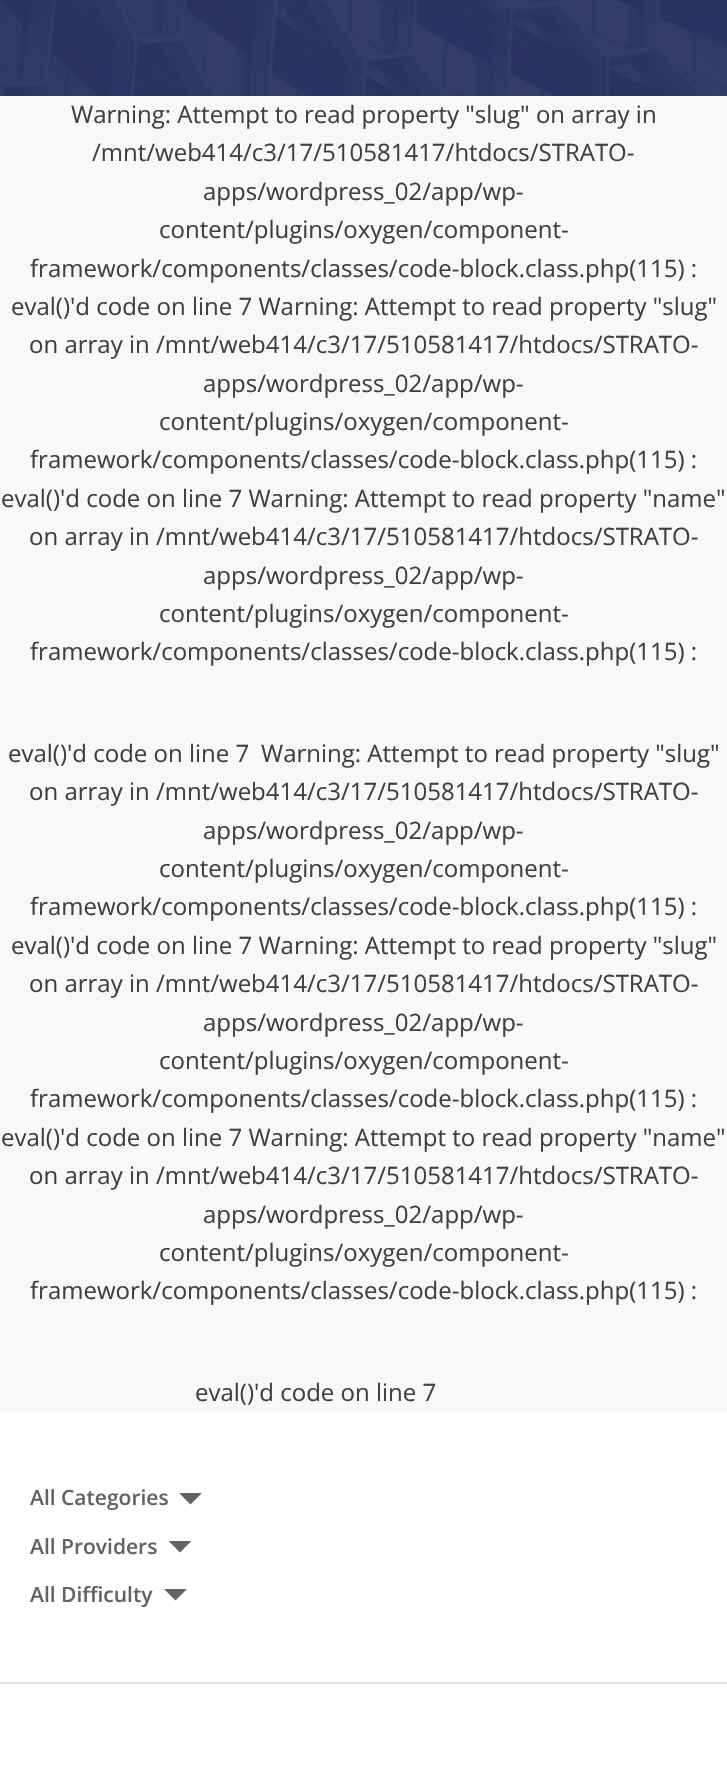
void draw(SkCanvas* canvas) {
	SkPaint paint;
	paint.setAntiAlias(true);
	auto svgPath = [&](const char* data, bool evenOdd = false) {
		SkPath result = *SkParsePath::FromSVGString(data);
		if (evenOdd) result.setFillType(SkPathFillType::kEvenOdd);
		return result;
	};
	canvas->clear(0xffffffff);
	canvas->drawImageRect(SkImages::DeferredFromEncodedData(SkData::MakeFromFileName("img1.png")), SkRect::MakeXYWH(0, 0, 727, 96), SkSamplingOptions());
	paint.setColor(0xfff8f8fb);
	canvas->drawRect(SkRect::MakeXYWH(0, 96, 727, 1316), paint);
	SkFont f1(fontMgr->matchFamilyStyle("Open Sans", SkFontStyle::Normal()), 24);
	f1.setSubpixel(true);
	paint.setColor(0xff404040);
	canvas->drawString("Warning: Attempt to read property \"slug\" on array in", 71, 123, f1, paint);
	canvas->drawString("/mnt/web414/c3/17/510581417/htdocs/STRATO-", 92, 161, f1, paint);
	canvas->drawString("apps/wordpress_02/app/wp-", 203, 200, f1, paint);
	canvas->drawString("content/plugins/oxygen/component-", 159, 238, f1, paint);
	canvas->drawString("framework/components/classes/code-block.class.php(115) :", 30, 277, f1, paint);
	canvas->drawString("eval()'d code on line 7 Warning: Attempt to read property \"slug\"", 11, 315, f1, paint);
	canvas->drawString("on array in /mnt/web414/c3/17/510581417/htdocs/STRATO-", 29, 353, f1, paint);
	canvas->drawString("apps/wordpress_02/app/wp-", 203, 392, f1, paint);
	canvas->drawString("content/plugins/oxygen/component-", 159, 430, f1, paint);
	canvas->drawString("framework/components/classes/code-block.class.php(115) :", 30, 468, f1, paint);
	canvas->drawString("eval()'d code on line 7 Warning: Attempt to read property \"name\"", 1, 507, f1, paint);
	canvas->drawString("on array in /mnt/web414/c3/17/510581417/htdocs/STRATO-", 29, 545, f1, paint);
	canvas->drawString("apps/wordpress_02/app/wp-", 203, 584, f1, paint);
	canvas->drawString("content/plugins/oxygen/component-", 159, 622, f1, paint);
	canvas->drawString("framework/components/classes/code-block.class.php(115) :", 30, 660, f1, paint);
	canvas->drawString("eval()'d code on line 7", 8, 762, f1, paint);
	canvas->drawString("Warning: Attempt to read property \"slug\"", 261, 762, f1, paint);
	canvas->drawString("on array in /mnt/web414/c3/17/510581417/htdocs/STRATO-", 29, 800, f1, paint);
	canvas->drawString("apps/wordpress_02/app/wp-", 203, 839, f1, paint);
	canvas->drawString("content/plugins/oxygen/component-", 159, 877, f1, paint);
	canvas->drawString("framework/components/classes/code-block.class.php(115) :", 30, 915, f1, paint);
	canvas->drawString("eval()'d code on line 7 Warning: Attempt to read property \"slug\"", 11, 954, f1, paint);
	canvas->drawString("on array in /mnt/web414/c3/17/510581417/htdocs/STRATO-", 29, 992, f1, paint);
	canvas->drawString("apps/wordpress_02/app/wp-", 203, 1031, f1, paint);
	canvas->drawString("content/plugins/oxygen/component-", 159, 1069, f1, paint);
	canvas->drawString("framework/components/classes/code-block.class.php(115) :", 30, 1107, f1, paint);
	canvas->drawString("eval()'d code on line 7 Warning: Attempt to read property \"name\"", 1, 1146, f1, paint);
	canvas->drawString("on array in /mnt/web414/c3/17/510581417/htdocs/STRATO-", 29, 1184, f1, paint);
	canvas->drawString("apps/wordpress_02/app/wp-", 203, 1223, f1, paint);
	canvas->drawString("content/plugins/oxygen/component-", 159, 1261, f1, paint);
	canvas->drawString("framework/components/classes/code-block.class.php(115) :", 30, 1299, f1, paint);
	canvas->drawString("eval()'d code on line 7", 195, 1401, f1, paint);
	paint.setColor(0xffe1e1e1);
	canvas->drawRect(SkRect::MakeXYWH(0, 1682, 727, 2), paint);
	SkFont f2(fontMgr->matchFamilyStyle("Open Sans", SkFontStyle(600, SkFontStyle::kNormal_Width, SkFontStyle::kUpright_Slant)), 21);
	f2.setSubpixel(true);
	paint.setColor(0xff636363);
	canvas->drawString("All Categories", 30, 1505, f2, paint);
	canvas->drawPath(svgPath("M201 1493H180L179.5 1493.5L190.5 1504.5L192.5 1502.5L201.5 1493.5Z"), paint);
	canvas->drawString("All Providers", 30, 1554, f2, paint);
	canvas->drawPath(svgPath("M190.5 1541H169.5L169 1541.5L180 1552.5L182 1550.5L191 1541.5Z"), paint);
	canvas->drawString("All Difficulty", 30, 1602, f2, paint);
	canvas->drawPath(svgPath("M186 1589H165L164.5 1589.5L175.5 1600.5L177.5 1598.5L186.5 1589.5Z"), paint);
}
